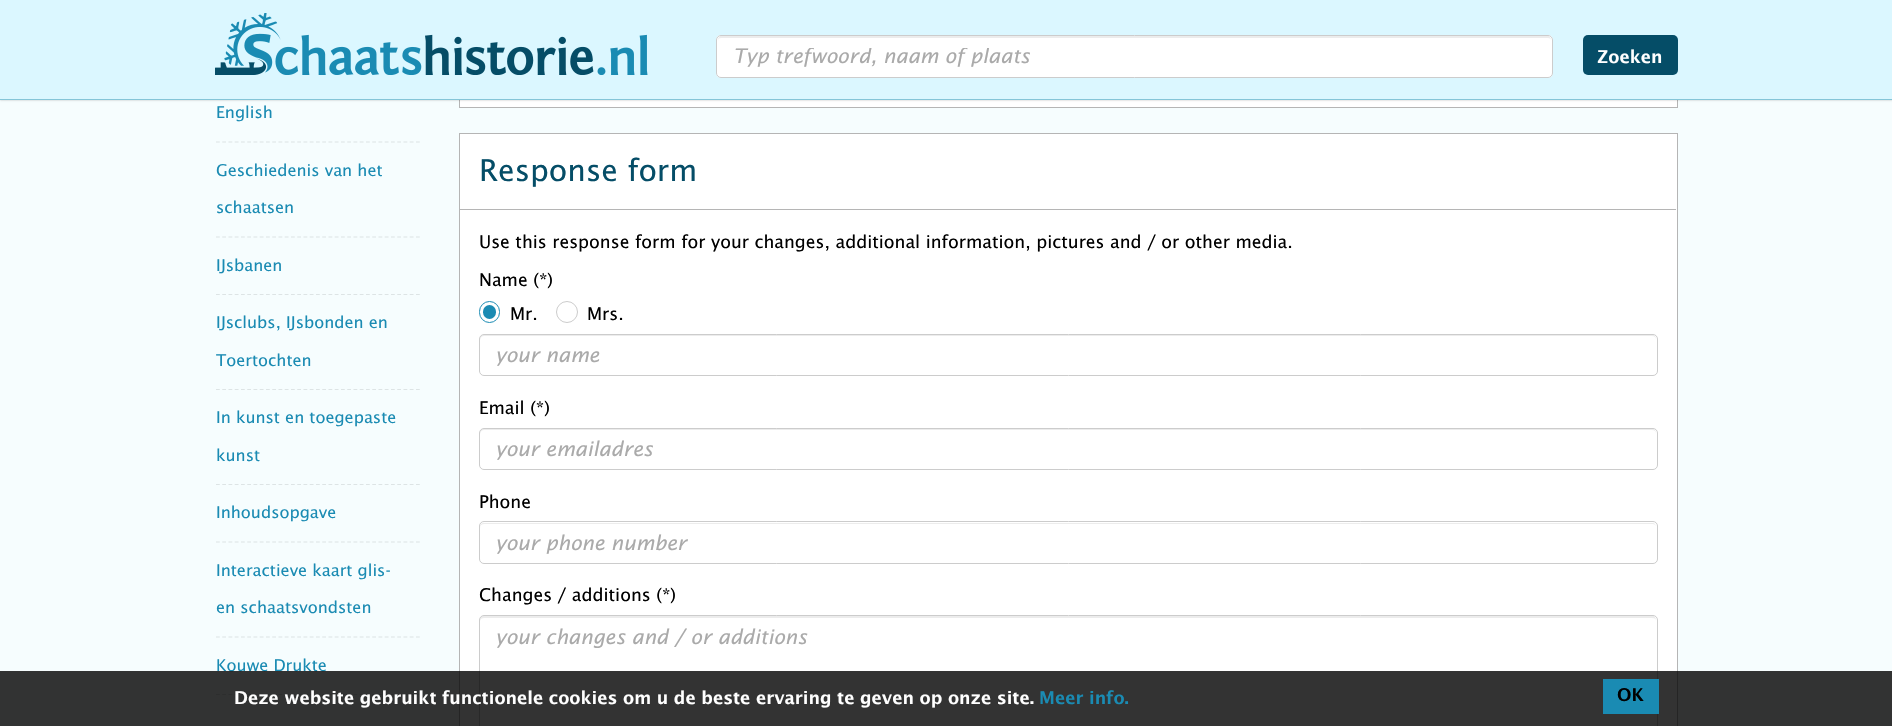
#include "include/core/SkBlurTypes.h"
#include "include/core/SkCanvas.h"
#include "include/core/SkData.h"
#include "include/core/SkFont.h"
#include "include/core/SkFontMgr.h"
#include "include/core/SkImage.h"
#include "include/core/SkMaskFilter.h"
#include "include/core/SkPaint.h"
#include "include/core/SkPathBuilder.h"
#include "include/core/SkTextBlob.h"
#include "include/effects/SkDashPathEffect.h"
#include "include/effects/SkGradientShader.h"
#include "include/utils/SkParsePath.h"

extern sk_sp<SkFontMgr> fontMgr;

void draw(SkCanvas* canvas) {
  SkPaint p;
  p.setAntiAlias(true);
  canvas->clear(SkColorSetRGB(246, 253, 254));
  p.setColor(SK_ColorWHITE);
  canvas->drawRect(SkRect::MakeLTRB(460, 100, 1677, 107), p);
  p.setStyle(SkPaint::kStroke_Style);
  p.setStrokeWidth(1);
  p.setColor(SkColorSetRGB(181, 181, 181));
  canvas->drawRect(SkRect::MakeLTRB(459.5f, -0.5f, 1677.5f, 107.5f), p);
  p.setStyle(SkPaint::kFill_Style);
  p.setColor(SkColorSetARGB(64, 0, 0, 0));
  p.setMaskFilter(SkMaskFilter::MakeBlur(kNormal_SkBlurStyle, 1));
  canvas->drawRect(SkRect::MakeLTRB(0, 0, 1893, 100), p);
  p.setMaskFilter(nullptr);
  p.setColor(SkColorSetRGB(219, 247, 255));
  canvas->drawRect(SkRect::MakeLTRB(0, 0, 1892, 99), p);
  p.setColor(SkColorSetRGB(132, 197, 216));
  canvas->drawRect(SkRect::MakeLTRB(0, 99, 1892, 100), p);
  canvas->drawImageRect(SkImages::DeferredFromEncodedData(SkData::MakeFromFileName("images/1.png")), SkRect::MakeLTRB(215, 13, 648, 75), SkSamplingOptions());
  p.setColor(SK_ColorWHITE);
  canvas->drawRoundRect(SkRect::MakeLTRB(716, 35, 1553, 78), 5, 5, p);
  p.setColor(SkColorSetRGB(236, 236, 236));
  canvas->drawPath(SkPathBuilder().moveTo(721, 38).lineTo(1548, 38).cubicTo(1550, 38, 1551, 39, 1551, 41).cubicTo(1551, 38, 1550, 36, 1547, 36).lineTo(722, 36).cubicTo(719, 36, 718, 38, 718, 41).cubicTo(718, 39, 719, 38, 721, 38).close().detach(), p);
  p.setStyle(SkPaint::kStroke_Style);
  p.setColor(SkColorSetRGB(204, 204, 204));
  canvas->drawRoundRect(SkRect::MakeLTRB(716.5f, 35.5f, 1552.5f, 77.5f), 4.5f, 4.5f, p);
  p.setStyle(SkPaint::kFill_Style);
  p.setColor(SkColorSetRGB(5, 77, 103));
  canvas->drawRoundRect(SkRect::MakeLTRB(1583, 35, 1678, 75), 5, 5, p);
  p.setStyle(SkPaint::kStroke_Style);
  p.setStrokeWidth(1.2f);
  p.setColor(SkColorSetRGB(221, 228, 229));
  p.setPathEffect(SkDashPathEffect::Make({{3.75f, 2.5f}}, 0));
  canvas->drawPath(SkPathBuilder().moveTo(216, 142).lineTo(420, 142).detach(), p);
  p.setPathEffect(nullptr);
  p.setPathEffect(SkDashPathEffect::Make({{3.75f, 2.5f}}, 0));
  canvas->drawPath(SkPathBuilder().moveTo(216, 237).lineTo(420, 237).detach(), p);
  p.setPathEffect(nullptr);
  p.setPathEffect(SkDashPathEffect::Make({{3.75f, 2.5f}}, 0));
  canvas->drawPath(SkPathBuilder().moveTo(216, 294.5f).lineTo(420, 294.5f).detach(), p);
  p.setPathEffect(nullptr);
  p.setPathEffect(SkDashPathEffect::Make({{3.75f, 2.5f}}, 0));
  canvas->drawPath(SkPathBuilder().moveTo(216, 389.5f).lineTo(420, 389.5f).detach(), p);
  p.setPathEffect(nullptr);
  p.setPathEffect(SkDashPathEffect::Make({{3.75f, 2.5f}}, 0));
  canvas->drawPath(SkPathBuilder().moveTo(216, 484.5f).lineTo(420, 484.5f).detach(), p);
  p.setPathEffect(nullptr);
  p.setPathEffect(SkDashPathEffect::Make({{3.75f, 2.5f}}, 0));
  canvas->drawPath(SkPathBuilder().moveTo(216, 542).lineTo(420, 542).detach(), p);
  p.setPathEffect(nullptr);
  p.setPathEffect(SkDashPathEffect::Make({{3.75f, 2.5f}}, 0));
  canvas->drawPath(SkPathBuilder().moveTo(216, 637).lineTo(420, 637).detach(), p);
  p.setPathEffect(nullptr);
  p.setPathEffect(SkDashPathEffect::Make({{3.75f, 2.5f}}, 0));
  canvas->drawPath(SkPathBuilder().moveTo(216, 694.5f).lineTo(420, 694.5f).detach(), p);
  p.setPathEffect(nullptr);
  p.setStyle(SkPaint::kFill_Style);
  p.setColor(SK_ColorWHITE);
  canvas->drawRect(SkRect::MakeLTRB(459.5f, 133.5f, 1677.5f, 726.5f), p);
  p.setStyle(SkPaint::kStroke_Style);
  p.setStrokeWidth(1);
  p.setColor(SkColorSetRGB(181, 181, 181));
  canvas->drawRect(SkRect::MakeLTRB(459.5f, 133.5f, 1677.5f, 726.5f), p);
  p.setStyle(SkPaint::kFill_Style);
  canvas->drawRect(SkRect::MakeLTRB(460, 209, 1676, 210), p);
  p.setStyle(SkPaint::kStroke_Style);
  p.setColor(SkColorSetRGB(26, 139, 179));
  canvas->drawRoundRect(SkRect::MakeLTRB(479.5f, 301.5f, 499.5f, 322.5f), 10, 10, p);
  p.setStyle(SkPaint::kFill_Style);
  canvas->drawRoundRect(SkRect::MakeLTRB(483, 305, 496, 319), 6.5f, 6.5f, p);
  p.setStyle(SkPaint::kStroke_Style);
  p.setColor(SkColorSetRGB(204, 204, 204));
  canvas->drawCircle(567, 312, 10.5f, p);
  p.setStyle(SkPaint::kFill_Style);
  p.setColor(SkColorSetRGB(236, 236, 236));
  canvas->drawPath(SkPathBuilder().moveTo(484, 336).lineTo(1652, 336).cubicTo(1655, 336, 1656, 338, 1656, 340).cubicTo(1656, 337, 1655, 335, 1652, 335).lineTo(484, 335).cubicTo(481, 335, 480, 337, 480, 340).cubicTo(480, 338, 482, 336, 484, 336).close().detach(), p);
  p.setStyle(SkPaint::kStroke_Style);
  p.setColor(SkColorSetRGB(204, 204, 204));
  canvas->drawRoundRect(SkRect::MakeLTRB(479.5f, 334.5f, 1657.5f, 375.5f), 4.5f, 4.5f, p);
  p.setStyle(SkPaint::kFill_Style);
  p.setColor(SkColorSetRGB(236, 236, 236));
  canvas->drawPath(SkPathBuilder().moveTo(484, 430).lineTo(1652, 430).cubicTo(1655, 430, 1656, 432, 1656, 434).cubicTo(1656, 431, 1655, 429, 1652, 429).lineTo(484, 429).cubicTo(481, 429, 480, 431, 480, 434).cubicTo(480, 432, 482, 430, 484, 430).close().detach(), p);
  p.setStyle(SkPaint::kStroke_Style);
  p.setColor(SkColorSetRGB(204, 204, 204));
  canvas->drawRoundRect(SkRect::MakeLTRB(479.5f, 428.5f, 1657.5f, 469.5f), 4.5f, 4.5f, p);
  p.setStyle(SkPaint::kFill_Style);
  p.setColor(SkColorSetRGB(236, 236, 236));
  canvas->drawPath(SkPathBuilder().moveTo(484, 524).lineTo(1652, 524).cubicTo(1655, 524, 1656, 525, 1656, 528).cubicTo(1656, 525, 1655, 523, 1652, 523).lineTo(484, 523).cubicTo(481, 523, 480, 525, 480, 528).cubicTo(480, 525, 482, 524, 484, 524).close().detach(), p);
  p.setStyle(SkPaint::kStroke_Style);
  p.setColor(SkColorSetRGB(204, 204, 204));
  canvas->drawRoundRect(SkRect::MakeLTRB(479.5f, 521.5f, 1657.5f, 563.5f), 4.5f, 4.5f, p);
  p.setStyle(SkPaint::kFill_Style);
  p.setColor(SkColorSetRGB(236, 236, 236));
  canvas->drawPath(SkPathBuilder().moveTo(484, 618).lineTo(1652, 618).cubicTo(1655, 618, 1656, 619, 1656, 621).cubicTo(1656, 618, 1655, 616, 1652, 616).lineTo(484, 616).cubicTo(481, 616, 480, 618, 480, 621).cubicTo(480, 619, 482, 618, 484, 618).close().detach(), p);
  p.setStyle(SkPaint::kStroke_Style);
  p.setColor(SkColorSetRGB(204, 204, 204));
  canvas->drawRoundRect(SkRect::MakeLTRB(479.5f, 615.5f, 1657.5f, 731.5f), 4.5f, 4.5f, p);
  canvas->save();
  canvas->clipRect(SkRect::MakeLTRB(733, 48, 1531, 68));
  SkFont font1(fontMgr->matchFamilyStyle("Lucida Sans", SkFontStyle::Italic()), 20);
  font1.setSubpixel(true);
  p.setStyle(SkPaint::kFill_Style);
  p.setColor(SkColorSetRGB(170, 170, 170));
  canvas->drawString("Typ trefwoord, naam of plaats", 733, 63, font1, p);
  canvas->restore();
  SkFont font2(fontMgr->matchFamilyStyle("Lucida Sans", SkFontStyle(100, SkFontStyle::kNormal_Width, SkFontStyle::kUpright_Slant)), 17.5f);
  font2.setSubpixel(true);
  p.setColor(SK_ColorWHITE);
  canvas->drawString("Zoeken", 1597, 63, font2, p);
  SkFont font3(fontMgr->matchFamilyStyle("Lucida Sans", SkFontStyle::Normal()), 16.25f);
  font3.setSubpixel(true);
  p.setColor(SkColorSetRGB(26, 139, 179));
  canvas->drawString("English", 216, 118, font3, p);
  canvas->drawString("Geschiedenis van het", 216, 176, font3, p);
  canvas->drawString("schaatsen", 216, 213, font3, p);
  canvas->drawString("IJsbanen", 216, 271, font3, p);
  canvas->drawString("IJsclubs, IJsbonden en", 216, 328, font3, p);
  canvas->drawString("Toertochten", 216, 366, font3, p);
  canvas->drawString("In kunst en toegepaste", 216, 423, font3, p);
  canvas->drawString("kunst", 216, 461, font3, p);
  canvas->drawString("Inhoudsopgave", 216, 518, font3, p);
  canvas->drawString("Interactieve kaart glis-", 216, 576, font3, p);
  canvas->drawString("en schaatsvondsten", 216, 613, font3, p);
  canvas->drawString("Kouwe Drukte", 216, 671, font3, p);
  SkFont font4(fontMgr->matchFamilyStyle("Lucida Sans", SkFontStyle::Normal()), 30);
  font4.setSubpixel(true);
  p.setColor(SkColorSetRGB(5, 77, 103));
  canvas->drawString("Response form", 479, 181, font4, p);
  SkFont font5(fontMgr->matchFamilyStyle("Lucida Sans", SkFontStyle::Normal()), 17.5f);
  font5.setSubpixel(true);
  p.setColor(SK_ColorBLACK);
  canvas->drawString("Use this response form for your changes, additional information, pictures and / or other media.", 479, 248, font5, p);
  canvas->drawString("Name (*)", 479, 286, font5, p);
  canvas->drawString("Mr.", 510, 320, font5, p);
  canvas->drawString("Mrs.", 587, 320, font5, p);
  p.setColor(SkColorSetRGB(170, 170, 170));
  canvas->drawString("your name", 495, 362, font1, p);
  p.setColor(SK_ColorBLACK);
  canvas->drawString("Email (*)", 479, 414, font5, p);
  p.setColor(SkColorSetRGB(170, 170, 170));
  canvas->drawString("your emailadres", 495, 456, font1, p);
  p.setColor(SK_ColorBLACK);
  canvas->drawString("Phone", 479, 508, font5, p);
  p.setColor(SkColorSetRGB(170, 170, 170));
  canvas->drawString("your phone number", 495, 550, font1, p);
  p.setColor(SK_ColorBLACK);
  canvas->drawString("Changes / additions (*)", 479, 601, font5, p);
  p.setColor(SkColorSetRGB(170, 170, 170));
  canvas->drawString("your changes and / or additions", 495, 644, font1, p);
  p.setColor(SkColorSetARGB(204, 0, 0, 0));
  canvas->drawRect(SkRect::MakeLTRB(0, 671, 1892, 726), p);
  p.setColor(SK_ColorWHITE);
  canvas->drawString("Deze website gebruikt functionele cookies om u de beste ervaring te geven op onze site.", 234, 704, font2, p);
  p.setColor(SkColorSetRGB(26, 139, 179));
  canvas->drawString("Meer info.", 1039, 704, font2, p);
  canvas->drawRect(SkRect::MakeLTRB(1603, 679, 1659, 714), p);
  p.setColor(SK_ColorBLACK);
  canvas->drawString("OK", 1617, 701, font2, p);
}
